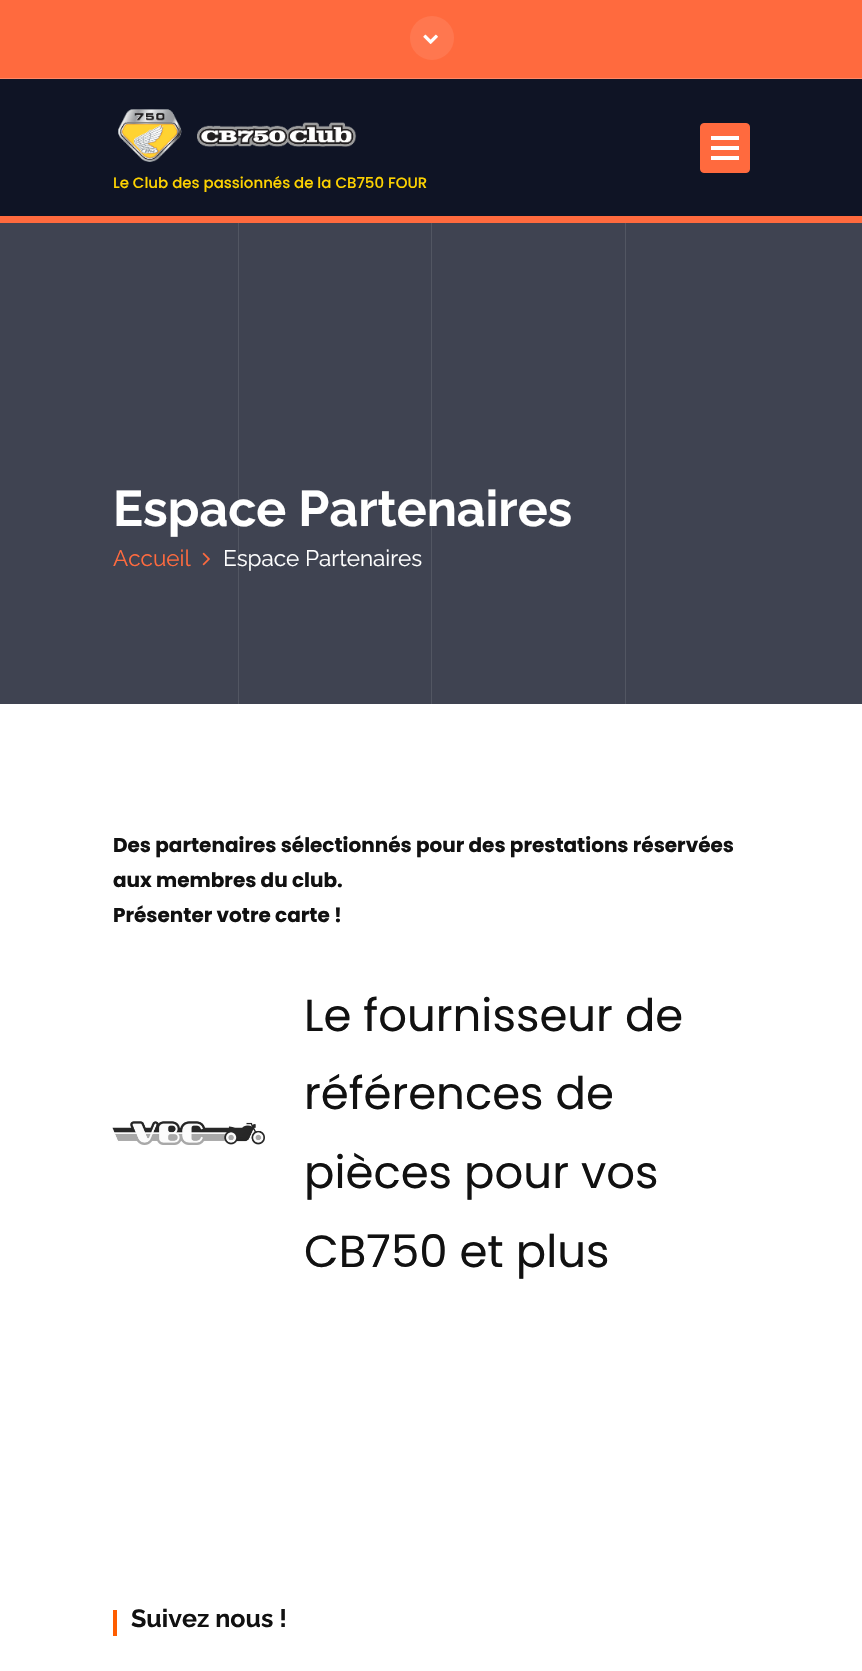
#include "include/core/SkBlurTypes.h"
#include "include/core/SkCanvas.h"
#include "include/core/SkData.h"
#include "include/core/SkFont.h"
#include "include/core/SkFontMgr.h"
#include "include/core/SkImage.h"
#include "include/core/SkMaskFilter.h"
#include "include/core/SkPaint.h"
#include "include/core/SkPathBuilder.h"
#include "include/core/SkTextBlob.h"
#include "include/effects/SkDashPathEffect.h"
#include "include/effects/SkGradientShader.h"
#include "include/utils/SkParsePath.h"

extern sk_sp<SkFontMgr> fontMgr;

void draw(SkCanvas* canvas) {
  SkPaint p;
  p.setAntiAlias(true);
  canvas->clear(SK_ColorWHITE);
  p.setColor(SkColorSetRGB(255, 106, 62));
  canvas->drawRect(SkRect::MakeLTRB(0, 0, 862, 78), p);
  p.setColor(SkColorSetRGB(255, 137, 103));
  canvas->drawRect(SkRect::MakeLTRB(0, 78, 862, 79), p);
  p.setColor(SkColorSetRGB(255, 119, 79));
  canvas->drawCircle(432, 38, 22, p);
  canvas->drawImageRect(SkImages::DeferredFromEncodedData(SkData::MakeFromFileName("images/1.png")), SkRect::MakeLTRB(423, 34, 438, 44), SkSamplingOptions());
  p.setColor(SkColorSetRGB(15, 20, 37));
  canvas->drawRect(SkRect::MakeLTRB(0, 79, 862, 216), p);
  p.setColor(SkColorSetRGB(255, 106, 62));
  canvas->drawRect(SkRect::MakeLTRB(0, 216, 862, 223), p);
  canvas->drawRoundRect(SkRect::MakeLTRB(700.5f, 123.5f, 749.5f, 172.5f), 3.5f, 3.5f, p);
  p.setStyle(SkPaint::kStroke_Style);
  p.setStrokeWidth(1);
  canvas->drawRoundRect(SkRect::MakeLTRB(700.5f, 123.5f, 749.5f, 172.5f), 3.5f, 3.5f, p);
  p.setStyle(SkPaint::kFill_Style);
  p.setColor(SK_ColorWHITE);
  canvas->drawRect(SkRect::MakeLTRB(711, 136, 739, 140), p);
  canvas->drawRect(SkRect::MakeLTRB(711, 146, 739, 150), p);
  canvas->drawRect(SkRect::MakeLTRB(711, 156, 739, 160), p);
  canvas->drawImageRect(SkImages::DeferredFromEncodedData(SkData::MakeFromFileName("images/2.png")), SkRect::MakeLTRB(118, 109, 357, 162), SkSamplingOptions());
  p.setColor(SkColorSetRGB(63, 67, 81));
  canvas->drawRect(SkRect::MakeLTRB(0, 223, 862, 704), p);
  p.setColor(SkColorSetRGB(82, 86, 98));
  canvas->drawRect(SkRect::MakeLTRB(238, 223, 239, 704), p);
  canvas->drawRect(SkRect::MakeLTRB(431, 223, 432, 704), p);
  canvas->drawRect(SkRect::MakeLTRB(625, 223, 626, 704), p);
  canvas->drawImageRect(SkImages::DeferredFromEncodedData(SkData::MakeFromFileName("images/3.png")), SkRect::MakeLTRB(202, 552, 210, 566), SkSamplingOptions());
  canvas->drawImageRect(SkImages::DeferredFromEncodedData(SkData::MakeFromFileName("images/4.png")), SkRect::MakeLTRB(112, 1121, 265, 1145), SkSamplingOptions());
  p.setColor(SkColorSetRGB(255, 93, 0));
  canvas->drawRect(SkRect::MakeLTRB(113, 1610, 117, 1636), p);
  SkFont font1(fontMgr->matchFamilyStyle("Poppins", SkFontStyle(500, SkFontStyle::kNormal_Width, SkFontStyle::kUpright_Slant)), 15);
  font1.setSubpixel(true);
  p.setColor(SkColorSetRGB(254, 211, 0));
  canvas->drawString("Le Club des passionnés de la CB750 FOUR", 113, 188, font1, p);
  SkFont font2(fontMgr->matchFamilyStyle("Raleway", SkFontStyle::Bold()), 50);
  font2.setSubpixel(true);
  p.setColor(SK_ColorWHITE);
  canvas->drawString("Espace Partenaires", 113, 526, font2, p);
  SkFont font3(fontMgr->matchFamilyStyle("Raleway", SkFontStyle::Normal()), 22.5f);
  font3.setSubpixel(true);
  p.setColor(SkColorSetRGB(255, 106, 62));
  canvas->drawString("Accueil", 113, 566, font3, p);
  p.setColor(SK_ColorWHITE);
  canvas->drawString("Espace Partenaires", 223, 566, font3, p);
  SkFont font4(fontMgr->matchFamilyStyle("Poppins", SkFontStyle::Bold()), 20);
  font4.setSubpixel(true);
  p.setColor(SkColorSetRGB(17, 17, 17));
  canvas->drawString("Des partenaires sélectionnés pour des prestations réservées", 113, 852, font4, p);
  canvas->drawString("aux membres du club.", 113, 887, font4, p);
  canvas->drawString("Présenter votre carte !", 113, 922, font4, p);
  SkFont font5(fontMgr->matchFamilyStyle("Poppins", SkFontStyle::Normal()), 45);
  font5.setSubpixel(true);
  canvas->drawString("Le fournisseur de", 304, 1031, font5, p);
  canvas->drawString("références de", 304, 1109, font5, p);
  canvas->drawString("pièces pour vos", 304, 1188, font5, p);
  canvas->drawString("CB750 et plus", 304, 1267, font5, p);
  SkFont font6(fontMgr->matchFamilyStyle("Raleway", SkFontStyle::Bold()), 25);
  font6.setSubpixel(true);
  canvas->drawString("Suivez nous !", 131, 1627, font6, p);
}
